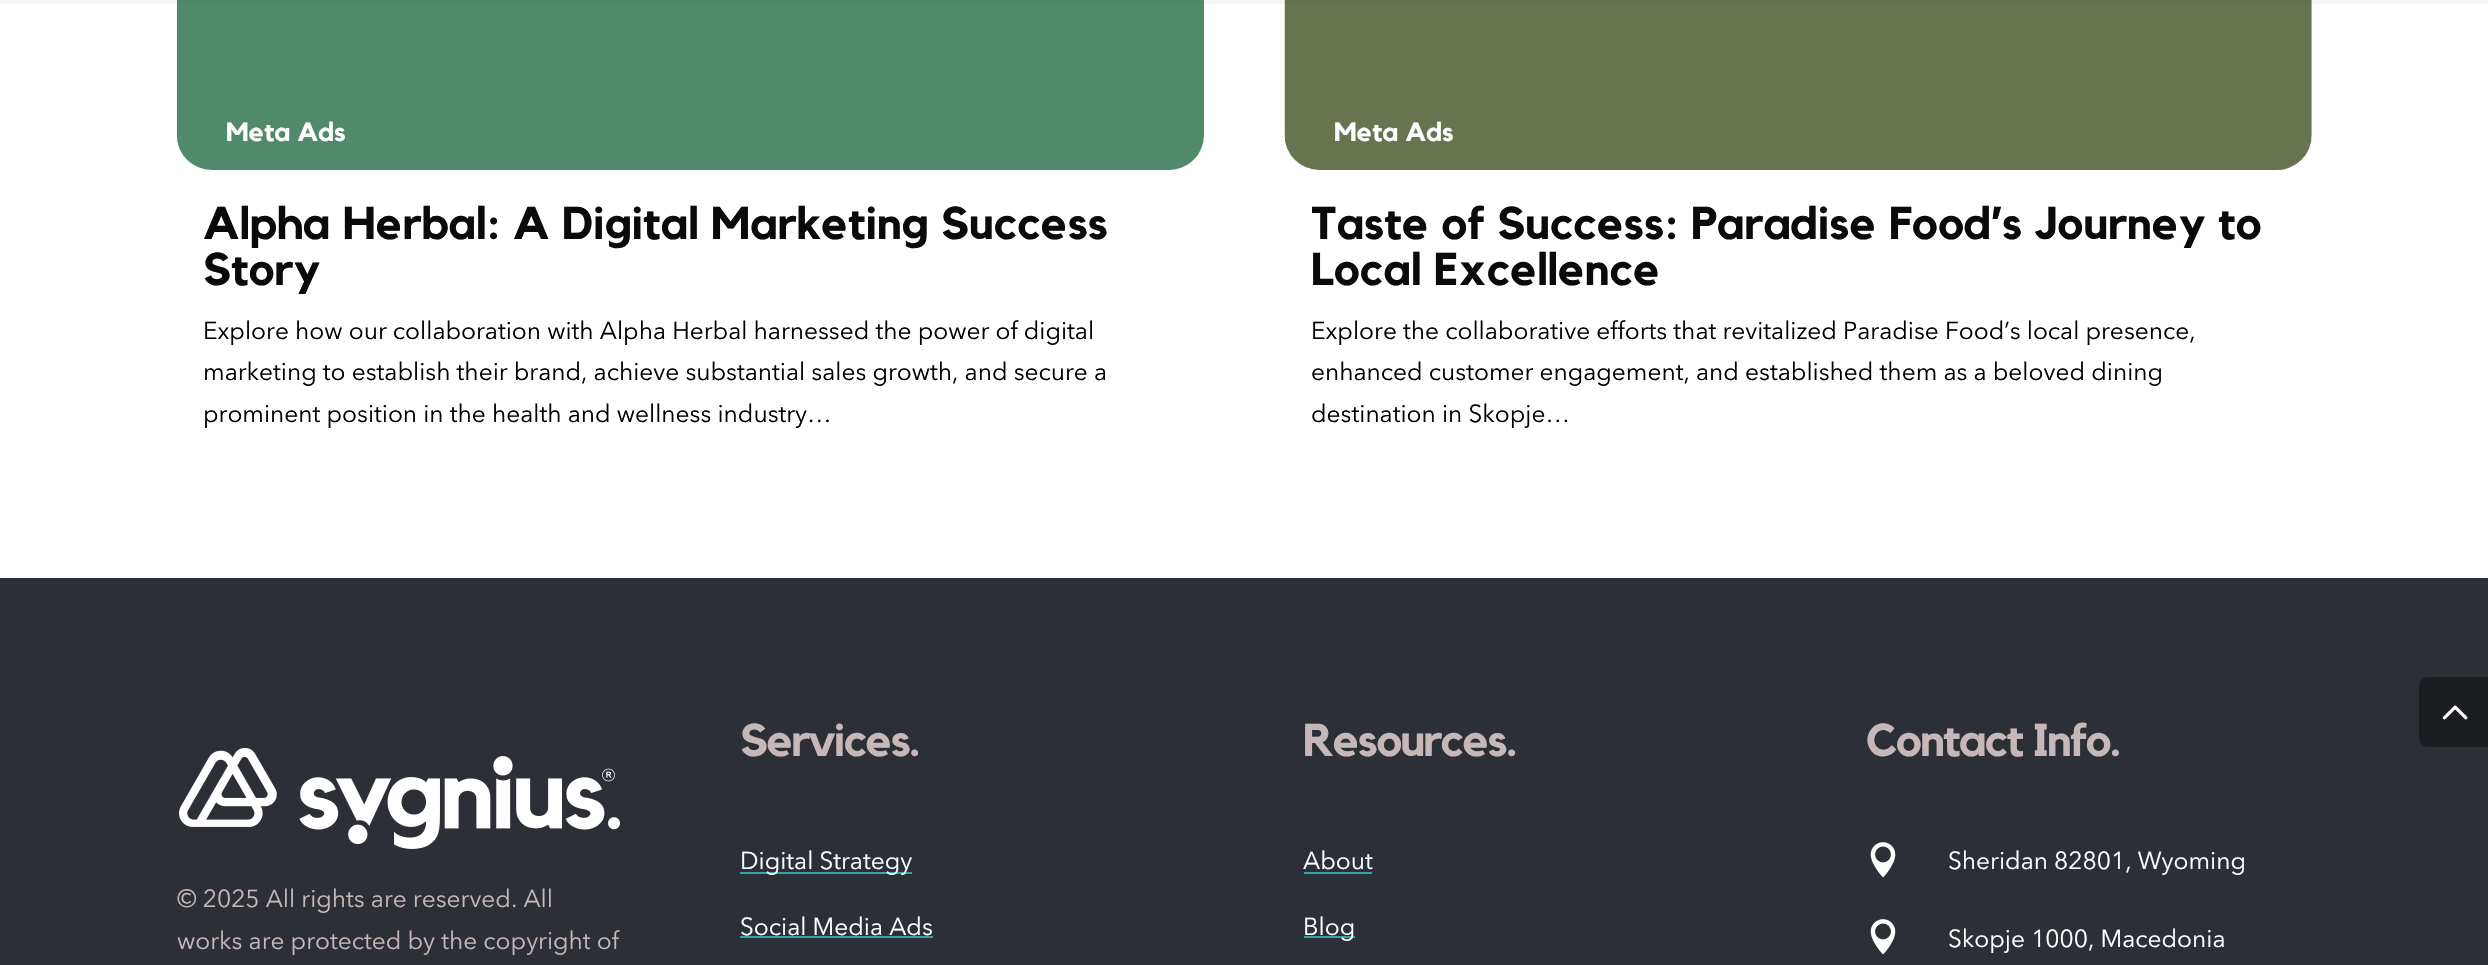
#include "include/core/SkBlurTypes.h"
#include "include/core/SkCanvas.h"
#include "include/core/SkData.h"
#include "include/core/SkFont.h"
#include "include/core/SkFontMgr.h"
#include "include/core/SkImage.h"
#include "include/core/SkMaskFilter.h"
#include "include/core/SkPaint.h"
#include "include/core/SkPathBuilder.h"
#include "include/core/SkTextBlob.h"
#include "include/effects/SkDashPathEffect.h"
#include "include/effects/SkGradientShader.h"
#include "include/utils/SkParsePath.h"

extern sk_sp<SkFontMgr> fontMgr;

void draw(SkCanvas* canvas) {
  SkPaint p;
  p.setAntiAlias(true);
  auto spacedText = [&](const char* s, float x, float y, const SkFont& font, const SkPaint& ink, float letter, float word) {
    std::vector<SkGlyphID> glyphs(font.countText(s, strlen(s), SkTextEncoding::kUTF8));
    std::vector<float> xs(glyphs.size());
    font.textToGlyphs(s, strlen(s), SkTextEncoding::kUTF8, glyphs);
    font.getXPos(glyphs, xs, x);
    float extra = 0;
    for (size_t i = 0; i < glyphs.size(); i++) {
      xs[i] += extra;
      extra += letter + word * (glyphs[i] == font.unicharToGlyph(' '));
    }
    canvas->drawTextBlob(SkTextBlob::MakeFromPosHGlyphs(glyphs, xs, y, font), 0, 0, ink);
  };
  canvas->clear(SK_ColorWHITE);
  canvas->drawImageRect(SkImages::DeferredFromEncodedData(SkData::MakeFromFileName("images/1.png")), SkRect::MakeLTRB(176, 0, 1204, 170), SkSamplingOptions());
  canvas->drawImageRect(SkImages::DeferredFromEncodedData(SkData::MakeFromFileName("images/2.png")), SkRect::MakeLTRB(1284, 0, 2312, 170), SkSamplingOptions());
  p.setColor(SkColorSetARGB(8, 0, 0, 0));
  canvas->drawPath(SkPathBuilder().moveTo(0, 0).lineTo(0, 4).lineTo(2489, 4).lineTo(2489, -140).lineTo(2488, -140).lineTo(2488, 0).close().detach(), p);
  p.setColor(SkColorSetRGB(44, 47, 53));
  canvas->drawRect(SkRect::MakeLTRB(0, 578, 2488, 965), p);
  canvas->drawImageRect(SkImages::DeferredFromEncodedData(SkData::MakeFromFileName("images/3.png")), SkRect::MakeLTRB(179, 747, 620, 849), SkSamplingOptions());
  p.setColor(SkColorSetRGB(52, 165, 166));
  canvas->drawRect(SkRect::MakeLTRB(740, 872, 912, 874), p);
  canvas->drawRect(SkRect::MakeLTRB(740, 936, 933, 938), p);
  canvas->drawRect(SkRect::MakeLTRB(1304, 872, 1372, 874), p);
  canvas->drawRect(SkRect::MakeLTRB(1304, 936, 1355, 938), p);
  canvas->drawImageRect(SkImages::DeferredFromEncodedData(SkData::MakeFromFileName("images/4.png")), SkRect::MakeLTRB(1870, 842, 1896, 878), SkSamplingOptions());
  canvas->drawImageRect(SkImages::DeferredFromEncodedData(SkData::MakeFromFileName("images/4.png")), SkRect::MakeLTRB(1870, 919, 1896, 955), SkSamplingOptions());
  p.setColor(SkColorSetRGB(26, 28, 32));
  canvas->drawPath(SkPathBuilder().moveTo(2428, 677).lineTo(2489, 677).lineTo(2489, 747).lineTo(2428, 747).cubicTo(2423, 747, 2419, 743, 2419, 738).lineTo(2419, 686).cubicTo(2419, 681, 2423, 677, 2428, 677).close().detach(), p);
  canvas->drawImageRect(SkImages::DeferredFromEncodedData(SkData::MakeFromFileName("images/5.png")), SkRect::MakeLTRB(2442, 705, 2468, 720), SkSamplingOptions());
  SkFont font1(fontMgr->matchFamilyStyle("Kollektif", SkFontStyle::Bold()), 26.25f);
  font1.setSubpixel(true);
  p.setColor(SK_ColorWHITE);
  canvas->drawString("Meta Ads", 226, 141, font1, p);
  SkFont font2(fontMgr->matchFamilyStyle("Kollektif", SkFontStyle::Bold()), 45.5f);
  font2.setSubpixel(true);
  p.setColor(SkColorSetRGB(10, 10, 10));
  canvas->drawString("Alpha Herbal: A Digital Marketing Success", 203, 239, font2, p);
  canvas->drawString("Story", 203, 285, font2, p);
  SkFont font3(fontMgr->matchFamilyStyle("Avenir Next", SkFontStyle::Normal()), 24.5f);
  font3.setSubpixel(true);
  p.setColor(SK_ColorBLACK);
  canvas->drawString("Explore how our collaboration with Alpha Herbal harnessed the power of digital", 203, 339, font3, p);
  canvas->drawString("marketing to establish their brand, achieve substantial sales growth, and secure a", 203, 380, font3, p);
  canvas->drawString("prominent position in the health and wellness industry…", 203, 422, font3, p);
  p.setColor(SK_ColorWHITE);
  canvas->drawString("Meta Ads", 1334, 141, font1, p);
  p.setColor(SkColorSetRGB(10, 10, 10));
  canvas->drawString("Taste of Success: Paradise Food’s Journey to", 1311, 239, font2, p);
  canvas->drawString("Local Excellence", 1311, 285, font2, p);
  p.setColor(SK_ColorBLACK);
  canvas->drawString("Explore the collaborative efforts that revitalized Paradise Food’s local presence,", 1311, 339, font3, p);
  canvas->drawString("enhanced customer engagement, and established them as a beloved dining", 1311, 380, font3, p);
  canvas->drawString("destination in Skopje…", 1311, 422, font3, p);
  p.setColor(SkColorSetRGB(198, 184, 184));
  canvas->drawString("© 2025 All rights are reserved. All", 177, 907, font3, p);
  canvas->drawString("works are protected by the copyright of", 177, 949, font3, p);
  spacedText("Services.", 740, 756, font2, p, -1.75f, 0);
  p.setColor(SK_ColorWHITE);
  canvas->drawString("Digital Strategy", 740, 869, font3, p);
  canvas->drawString("Social Media Ads", 740, 935, font3, p);
  p.setColor(SkColorSetRGB(198, 184, 184));
  spacedText("Resources.", 1303, 756, font2, p, -1.75f, 0);
  p.setColor(SK_ColorWHITE);
  canvas->drawString("About", 1303, 869, font3, p);
  canvas->drawString("Blog", 1303, 935, font3, p);
  p.setColor(SkColorSetRGB(198, 184, 184));
  spacedText("Contact Info.", 1866, 756, font2, p, -1.75f, 0);
  p.setColor(SK_ColorWHITE);
  canvas->drawString("Sheridan 82801, Wyoming", 1948, 869, font3, p);
  canvas->drawString("Skopje 1000, Macedonia", 1948, 947, font3, p);
}
